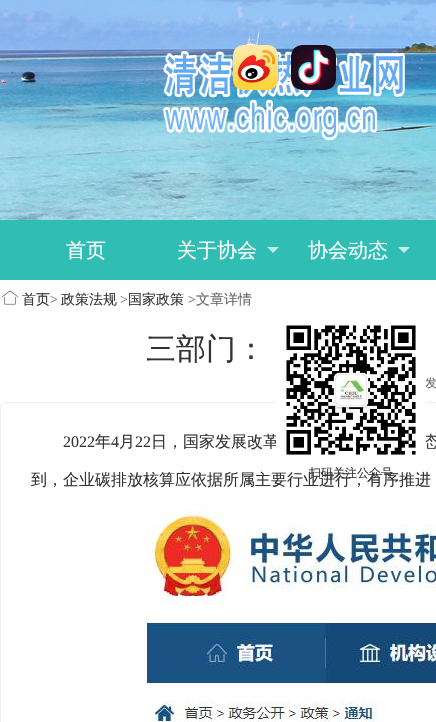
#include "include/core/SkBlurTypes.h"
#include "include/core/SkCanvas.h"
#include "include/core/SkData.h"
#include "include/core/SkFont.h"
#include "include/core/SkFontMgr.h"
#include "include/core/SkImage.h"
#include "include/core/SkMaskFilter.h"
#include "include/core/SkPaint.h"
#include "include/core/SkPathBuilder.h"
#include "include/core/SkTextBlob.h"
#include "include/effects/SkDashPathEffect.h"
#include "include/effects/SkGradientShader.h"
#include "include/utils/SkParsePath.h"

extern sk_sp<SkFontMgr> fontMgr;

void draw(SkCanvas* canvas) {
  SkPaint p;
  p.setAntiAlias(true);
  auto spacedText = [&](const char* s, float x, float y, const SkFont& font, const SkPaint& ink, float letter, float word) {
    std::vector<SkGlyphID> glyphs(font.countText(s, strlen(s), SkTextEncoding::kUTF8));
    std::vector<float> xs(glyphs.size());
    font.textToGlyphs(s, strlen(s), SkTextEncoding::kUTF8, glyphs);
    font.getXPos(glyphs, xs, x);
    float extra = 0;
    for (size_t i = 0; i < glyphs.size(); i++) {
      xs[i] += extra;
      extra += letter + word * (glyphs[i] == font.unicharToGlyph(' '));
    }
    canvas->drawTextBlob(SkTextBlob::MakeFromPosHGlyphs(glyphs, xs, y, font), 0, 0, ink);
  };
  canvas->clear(SK_ColorWHITE);
  canvas->drawImageRect(SkImages::DeferredFromEncodedData(SkData::MakeFromFileName("images/1.png")), SkRect::MakeLTRB(0, 0, 436, 220), SkSamplingOptions());
  canvas->drawImageRect(SkImages::DeferredFromEncodedData(SkData::MakeFromFileName("images/2.png")), SkRect::MakeLTRB(233, 45, 278, 90), SkSamplingOptions());
  canvas->drawImageRect(SkImages::DeferredFromEncodedData(SkData::MakeFromFileName("images/3.png")), SkRect::MakeLTRB(291, 45, 336, 90), SkSamplingOptions());
  p.setColor(SkColorSetRGB(48, 189, 179));
  canvas->drawRect(SkRect::MakeLTRB(0, 220, 436, 280), p);
  p.setColor(SkColorSetRGB(193, 235, 232));
  canvas->drawPath(SkPathBuilder().moveTo(267, 247).lineTo(279, 247).lineTo(273, 253).close().detach(), p);
  canvas->drawPath(SkPathBuilder().moveTo(398, 247).lineTo(410, 247).lineTo(404, 253).close().detach(), p);
  canvas->drawImageRect(SkImages::DeferredFromEncodedData(SkData::MakeFromFileName("images/4.png")), SkRect::MakeLTRB(2, 290, 18, 305), SkSamplingOptions());
  p.setStyle(SkPaint::kStroke_Style);
  p.setStrokeWidth(1);
  p.setColor(SkColorSetRGB(238, 238, 238));
  canvas->drawRoundRect(SkRect::MakeLTRB(0.5f, 402.5f, 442.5f, 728.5f), 5.5f, 5.5f, p);
  canvas->drawImageRect(SkImages::DeferredFromEncodedData(SkData::MakeFromFileName("images/5.png")), SkRect::MakeLTRB(147, 509, 436, 722), SkSamplingOptions());
  SkFont font1(fontMgr->matchFamilyStyle("WenQuanYi Zen Hei", SkFontStyle(500, SkFontStyle::kNormal_Width, SkFontStyle::kUpright_Slant)), 20);
  font1.setSubpixel(true);
  p.setStyle(SkPaint::kFill_Style);
  p.setColor(SK_ColorWHITE);
  canvas->drawString("首页", 66, 257, font1, p);
  canvas->drawString("关于协会", 177, 257, font1, p);
  canvas->drawString("协会动态", 308, 257, font1, p);
  SkFont font2(fontMgr->matchFamilyStyle("WenQuanYi Zen Hei", SkFontStyle(500, SkFontStyle::kNormal_Width, SkFontStyle::kUpright_Slant)), 14);
  font2.setSubpixel(true);
  p.setColor(SkColorSetRGB(51, 51, 51));
  canvas->drawString("首页", 22, 304, font2, p);
  SkFont font3(fontMgr->matchFamilyStyle("Liberation Serif", SkFontStyle::Normal()), 14);
  font3.setSubpixel(true);
  p.setColor(SkColorSetRGB(102, 102, 102));
  canvas->drawString(">", 50, 304, font3, p);
  p.setColor(SkColorSetRGB(51, 51, 51));
  canvas->drawString("政策法规", 61, 304, font2, p);
  p.setColor(SkColorSetRGB(102, 102, 102));
  canvas->drawString(">", 120, 304, font3, p);
  p.setColor(SkColorSetRGB(51, 51, 51));
  canvas->drawString("国家政策", 128, 304, font2, p);
  p.setColor(SkColorSetRGB(102, 102, 102));
  canvas->drawString(">", 188, 304, font3, p);
  canvas->drawString("文章详情", 196, 304, font2, p);
  SkFont font4(fontMgr->matchFamilyStyle("WenQuanYi Zen Hei", SkFontStyle(500, SkFontStyle::kNormal_Width, SkFontStyle::kUpright_Slant)), 30);
  font4.setSubpixel(true);
  p.setColor(SkColorSetRGB(51, 51, 51));
  spacedText("三部门：", 146, 359, font4, p, 0, -1);
  SkFont font5(fontMgr->matchFamilyStyle("WenQuanYi Zen Hei", SkFontStyle(500, SkFontStyle::kNormal_Width, SkFontStyle::kUpright_Slant)), 12);
  font5.setSubpixel(true);
  p.setColor(SkColorSetRGB(102, 102, 102));
  canvas->drawString("发", 425, 387, font5, p);
  SkFont font6(fontMgr->matchFamilyStyle("Liberation Serif", SkFontStyle::Normal()), 16);
  font6.setSubpixel(true);
  p.setColor(SkColorSetRGB(51, 51, 51));
  canvas->drawString("2022", 63, 447, font6, p);
  SkFont font7(fontMgr->matchFamilyStyle("WenQuanYi Zen Hei", SkFontStyle(500, SkFontStyle::kNormal_Width, SkFontStyle::kUpright_Slant)), 16);
  font7.setSubpixel(true);
  canvas->drawString("年", 95, 447, font7, p);
  canvas->drawString("4", 111, 447, font6, p);
  canvas->drawString("月", 119, 447, font7, p);
  canvas->drawString("22", 135, 447, font6, p);
  canvas->drawString("日，国家发展改革", 151, 447, font7, p);
  canvas->drawString("态", 423, 447, font7, p);
  canvas->drawString("到，企业碳排放核算应依据所属主要行业进行，有序推进", 31, 485, font7, p);
  canvas->drawImageRect(SkImages::DeferredFromEncodedData(SkData::MakeFromFileName("images/6.png")), SkRect::MakeLTRB(276, 324, 426, 455), SkSamplingOptions());
  canvas->drawString("扫码关注公众号", 309, 477, font5, p);
}
